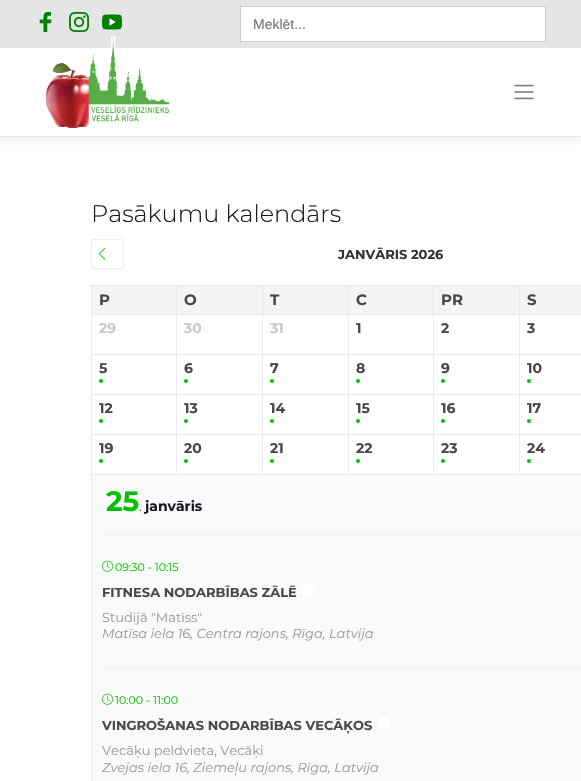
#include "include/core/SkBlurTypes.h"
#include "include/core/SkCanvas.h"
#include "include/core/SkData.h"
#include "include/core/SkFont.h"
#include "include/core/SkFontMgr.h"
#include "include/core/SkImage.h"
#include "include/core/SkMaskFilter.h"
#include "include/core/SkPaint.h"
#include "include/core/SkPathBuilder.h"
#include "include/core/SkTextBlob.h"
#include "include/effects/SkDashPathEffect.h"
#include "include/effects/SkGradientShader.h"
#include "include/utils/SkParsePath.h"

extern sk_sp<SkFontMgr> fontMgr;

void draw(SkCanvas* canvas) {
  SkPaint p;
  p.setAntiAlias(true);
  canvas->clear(SK_ColorWHITE);
  p.setColor(SkColorSetRGB(229, 229, 229));
  canvas->drawRect(SkRect::MakeLTRB(0, 0, 581, 48), p);
  canvas->drawImageRect(SkImages::DeferredFromEncodedData(SkData::MakeFromFileName("images/1.png")), SkRect::MakeLTRB(39, 12, 52, 32), SkSamplingOptions());
  canvas->drawImageRect(SkImages::DeferredFromEncodedData(SkData::MakeFromFileName("images/2.png")), SkRect::MakeLTRB(69, 12, 89, 32), SkSamplingOptions());
  canvas->drawImageRect(SkImages::DeferredFromEncodedData(SkData::MakeFromFileName("images/3.png")), SkRect::MakeLTRB(102, 14, 122, 30), SkSamplingOptions());
  canvas->save();
  canvas->clipRect(SkRect::MakeLTRB(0, 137, 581, 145));
  p.setColor(SkColorSetARGB(13, 0, 0, 0));
  p.setMaskFilter(SkMaskFilter::MakeBlur(kNormal_SkBlurStyle, 6.5f));
  canvas->drawRect(SkRect::MakeLTRB(0, 54, 581, 143), p);
  p.setMaskFilter(nullptr);
  canvas->restore();
  p.setColor(SK_ColorWHITE);
  canvas->drawRect(SkRect::MakeLTRB(240.5f, 6.5f, 545.5f, 41.5f), p);
  p.setStyle(SkPaint::kStroke_Style);
  p.setStrokeWidth(1);
  p.setColor(SkColorSetRGB(204, 204, 204));
  canvas->drawRect(SkRect::MakeLTRB(240.5f, 6.5f, 545.5f, 41.5f), p);
  p.setStyle(SkPaint::kFill_Style);
  p.setColor(SkColorSetRGB(230, 230, 230));
  canvas->drawRect(SkRect::MakeLTRB(0, 136, 581, 137), p);
  canvas->drawImageRect(SkImages::DeferredFromEncodedData(SkData::MakeFromFileName("images/4.png")), SkRect::MakeLTRB(45, 36, 169, 129), SkSamplingOptions());
  canvas->drawImageRect(SkImages::DeferredFromEncodedData(SkData::MakeFromFileName("images/5.png")), SkRect::MakeLTRB(514, 84, 534, 100), SkSamplingOptions());
  p.setColor(SkColorSetRGB(251, 251, 251));
  canvas->drawPath(SkPathBuilder().moveTo(91, 267).cubicTo(91, 272, 92.5f, 271, 98, 271).lineTo(117, 271).cubicTo(122.5f, 271, 124, 272, 124, 267).cubicTo(124, 268, 123, 269, 122, 269).lineTo(93, 269).cubicTo(92, 269, 91, 268, 91, 267).close().detach(), p);
  p.setStyle(SkPaint::kStroke_Style);
  p.setColor(SkColorSetRGB(238, 238, 238));
  canvas->drawRoundRect(SkRect::MakeLTRB(91.5f, 239.5f, 123.5f, 268.5f), 1.5f, 1.5f, p);
  canvas->drawImageRect(SkImages::DeferredFromEncodedData(SkData::MakeFromFileName("images/6.png")), SkRect::MakeLTRB(98, 247, 106, 260), SkSamplingOptions());
  p.setStyle(SkPaint::kFill_Style);
  p.setColor(SkColorSetRGB(244, 244, 244));
  canvas->drawRect(SkRect::MakeLTRB(92, 286, 176, 314), p);
  p.setColor(SkColorSetRGB(234, 234, 234));
  canvas->drawRect(SkRect::MakeLTRB(91, 285, 581, 286), p);
  canvas->drawRect(SkRect::MakeLTRB(91, 314, 581, 315), p);
  canvas->drawRect(SkRect::MakeLTRB(91, 285, 92, 315), p);
  p.setColor(SkColorSetRGB(244, 244, 244));
  canvas->drawRect(SkRect::MakeLTRB(177, 286, 262, 314), p);
  p.setColor(SkColorSetRGB(234, 234, 234));
  canvas->drawRect(SkRect::MakeLTRB(176, 285, 177, 315), p);
  p.setColor(SkColorSetRGB(244, 244, 244));
  canvas->drawRect(SkRect::MakeLTRB(263, 286, 348, 314), p);
  p.setColor(SkColorSetRGB(234, 234, 234));
  canvas->drawRect(SkRect::MakeLTRB(262, 285, 263, 315), p);
  p.setColor(SkColorSetRGB(244, 244, 244));
  canvas->drawRect(SkRect::MakeLTRB(349, 286, 433, 314), p);
  p.setColor(SkColorSetRGB(234, 234, 234));
  canvas->drawRect(SkRect::MakeLTRB(348, 285, 349, 315), p);
  p.setColor(SkColorSetRGB(244, 244, 244));
  canvas->drawRect(SkRect::MakeLTRB(434, 286, 519, 314), p);
  p.setColor(SkColorSetRGB(234, 234, 234));
  canvas->drawRect(SkRect::MakeLTRB(433, 285, 434, 315), p);
  p.setColor(SkColorSetRGB(244, 244, 244));
  canvas->drawRect(SkRect::MakeLTRB(520, 286, 581, 314), p);
  p.setColor(SkColorSetRGB(234, 234, 234));
  canvas->drawRect(SkRect::MakeLTRB(519, 285, 520, 315), p);
  canvas->drawRect(SkRect::MakeLTRB(91, 354, 581, 355), p);
  canvas->drawRect(SkRect::MakeLTRB(91, 315, 92, 355), p);
  canvas->drawRect(SkRect::MakeLTRB(176, 315, 177, 355), p);
  canvas->drawRect(SkRect::MakeLTRB(262, 315, 263, 355), p);
  canvas->drawRect(SkRect::MakeLTRB(348, 315, 349, 355), p);
  canvas->drawRect(SkRect::MakeLTRB(433, 315, 434, 355), p);
  canvas->drawRect(SkRect::MakeLTRB(519, 315, 520, 355), p);
  canvas->drawRect(SkRect::MakeLTRB(91, 394, 581, 395), p);
  canvas->drawRect(SkRect::MakeLTRB(91, 355, 92, 395), p);
  p.setColor(SkColorSetRGB(3, 193, 0));
  canvas->drawCircle(101, 381, 2, p);
  p.setColor(SkColorSetRGB(234, 234, 234));
  canvas->drawRect(SkRect::MakeLTRB(176, 355, 177, 395), p);
  p.setColor(SkColorSetRGB(3, 193, 0));
  canvas->drawCircle(186, 381, 2, p);
  p.setColor(SkColorSetRGB(234, 234, 234));
  canvas->drawRect(SkRect::MakeLTRB(262, 355, 263, 395), p);
  p.setColor(SkColorSetRGB(3, 193, 0));
  canvas->drawCircle(272, 381, 2, p);
  p.setColor(SkColorSetRGB(234, 234, 234));
  canvas->drawRect(SkRect::MakeLTRB(348, 355, 349, 395), p);
  p.setColor(SkColorSetRGB(3, 193, 0));
  canvas->drawCircle(358, 381, 2, p);
  p.setColor(SkColorSetRGB(234, 234, 234));
  canvas->drawRect(SkRect::MakeLTRB(433, 355, 434, 395), p);
  p.setColor(SkColorSetRGB(3, 193, 0));
  canvas->drawCircle(443, 381, 2, p);
  p.setColor(SkColorSetRGB(234, 234, 234));
  canvas->drawRect(SkRect::MakeLTRB(519, 355, 520, 395), p);
  p.setColor(SkColorSetRGB(3, 193, 0));
  canvas->drawCircle(529, 381, 2, p);
  p.setColor(SkColorSetRGB(234, 234, 234));
  canvas->drawRect(SkRect::MakeLTRB(91, 434, 581, 435), p);
  canvas->drawRect(SkRect::MakeLTRB(91, 395, 92, 435), p);
  p.setColor(SkColorSetRGB(3, 193, 0));
  canvas->drawCircle(101, 421, 2, p);
  p.setColor(SkColorSetRGB(234, 234, 234));
  canvas->drawRect(SkRect::MakeLTRB(176, 395, 177, 435), p);
  p.setColor(SkColorSetRGB(3, 193, 0));
  canvas->drawCircle(186, 421, 2, p);
  p.setColor(SkColorSetRGB(234, 234, 234));
  canvas->drawRect(SkRect::MakeLTRB(262, 395, 263, 435), p);
  p.setColor(SkColorSetRGB(3, 193, 0));
  canvas->drawCircle(272, 421, 2, p);
  p.setColor(SkColorSetRGB(234, 234, 234));
  canvas->drawRect(SkRect::MakeLTRB(348, 395, 349, 435), p);
  p.setColor(SkColorSetRGB(3, 193, 0));
  canvas->drawCircle(358, 421, 2, p);
  p.setColor(SkColorSetRGB(234, 234, 234));
  canvas->drawRect(SkRect::MakeLTRB(433, 395, 434, 435), p);
  p.setColor(SkColorSetRGB(3, 193, 0));
  canvas->drawCircle(443, 421, 2, p);
  p.setColor(SkColorSetRGB(234, 234, 234));
  canvas->drawRect(SkRect::MakeLTRB(519, 395, 520, 435), p);
  p.setColor(SkColorSetRGB(3, 193, 0));
  canvas->drawCircle(529, 421, 2, p);
  p.setColor(SkColorSetRGB(234, 234, 234));
  canvas->drawRect(SkRect::MakeLTRB(91, 474, 581, 475), p);
  canvas->drawRect(SkRect::MakeLTRB(91, 435, 92, 475), p);
  p.setColor(SkColorSetRGB(3, 193, 0));
  canvas->drawCircle(101, 461, 2, p);
  p.setColor(SkColorSetRGB(234, 234, 234));
  canvas->drawRect(SkRect::MakeLTRB(176, 435, 177, 475), p);
  p.setColor(SkColorSetRGB(3, 193, 0));
  canvas->drawCircle(186, 461, 2, p);
  p.setColor(SkColorSetRGB(234, 234, 234));
  canvas->drawRect(SkRect::MakeLTRB(262, 435, 263, 475), p);
  p.setColor(SkColorSetRGB(3, 193, 0));
  canvas->drawCircle(272, 461, 2, p);
  p.setColor(SkColorSetRGB(234, 234, 234));
  canvas->drawRect(SkRect::MakeLTRB(348, 435, 349, 475), p);
  p.setColor(SkColorSetRGB(3, 193, 0));
  canvas->drawCircle(358, 461, 2, p);
  p.setColor(SkColorSetRGB(234, 234, 234));
  canvas->drawRect(SkRect::MakeLTRB(433, 435, 434, 475), p);
  p.setColor(SkColorSetRGB(3, 193, 0));
  canvas->drawCircle(443, 461, 2, p);
  p.setColor(SkColorSetRGB(234, 234, 234));
  canvas->drawRect(SkRect::MakeLTRB(519, 435, 520, 475), p);
  p.setColor(SkColorSetRGB(3, 193, 0));
  canvas->drawCircle(529, 461, 2, p);
  p.setColor(SkColorSetRGB(250, 250, 250));
  canvas->drawRect(SkRect::MakeLTRB(92, 475, 581, 781), p);
  p.setColor(SkColorSetRGB(234, 234, 234));
  canvas->drawRect(SkRect::MakeLTRB(91, 475, 92, 781), p);
  p.setColor(SkColorSetRGB(239, 239, 239));
  canvas->drawRect(SkRect::MakeLTRB(102, 534, 581, 535), p);
  canvas->drawImageRect(SkImages::DeferredFromEncodedData(SkData::MakeFromFileName("images/7.png")), SkRect::MakeLTRB(102, 560, 113, 572), SkSamplingOptions());
  p.setColor(SK_ColorWHITE);
  canvas->drawCircle(308, 590, 7, p);
  p.setColor(SkColorSetRGB(239, 239, 239));
  canvas->drawRect(SkRect::MakeLTRB(102, 667, 581, 668), p);
  canvas->drawImageRect(SkImages::DeferredFromEncodedData(SkData::MakeFromFileName("images/7.png")), SkRect::MakeLTRB(102, 693, 113, 705), SkSamplingOptions());
  p.setColor(SK_ColorWHITE);
  canvas->drawCircle(384, 723, 7, p);
  SkFont font1(fontMgr->matchFamilyStyle("Liberation Sans", SkFontStyle::Normal()), 14);
  font1.setSubpixel(true);
  p.setColor(SkColorSetRGB(117, 117, 117));
  canvas->drawString("Meklēt...", 253, 29, font1, p);
  SkFont font2(fontMgr->matchFamilyStyle("Montserrat", SkFontStyle(300, SkFontStyle::kNormal_Width, SkFontStyle::kUpright_Slant)), 24);
  font2.setSubpixel(true);
  p.setColor(SkColorSetRGB(23, 28, 36));
  canvas->drawString("Pasākumu kalendārs", 91, 222, font2, p);
  SkFont font3(fontMgr->matchFamilyStyle("Montserrat", SkFontStyle::Bold()), 13);
  font3.setSubpixel(true);
  p.setColor(SkColorSetRGB(51, 51, 51));
  canvas->drawString("JANVĀRIS 2026", 338, 259, font3, p);
  SkFont font4(fontMgr->matchFamilyStyle("Montserrat", SkFontStyle::Bold()), 15);
  font4.setSubpixel(true);
  p.setColor(SkColorSetRGB(73, 73, 73));
  canvas->drawString("P", 99, 305, font4, p);
  canvas->drawString("O", 184, 305, font4, p);
  canvas->drawString("T", 270, 305, font4, p);
  canvas->drawString("C", 356, 305, font4, p);
  canvas->drawString("PR", 441, 305, font4, p);
  canvas->drawString("S", 527, 305, font4, p);
  SkFont font5(fontMgr->matchFamilyStyle("Montserrat", SkFontStyle::Bold()), 14);
  font5.setSubpixel(true);
  p.setColor(SkColorSetRGB(202, 202, 202));
  canvas->drawString("29", 99, 333, font5, p);
  canvas->drawString("30", 184, 333, font5, p);
  canvas->drawString("31", 270, 333, font5, p);
  p.setColor(SkColorSetRGB(73, 73, 73));
  canvas->drawString("1", 356, 333, font5, p);
  canvas->drawString("2", 441, 333, font5, p);
  canvas->drawString("3", 527, 333, font5, p);
  canvas->drawString("5", 99, 373, font5, p);
  canvas->drawString("6", 184, 373, font5, p);
  canvas->drawString("7", 270, 373, font5, p);
  canvas->drawString("8", 356, 373, font5, p);
  canvas->drawString("9", 441, 373, font5, p);
  canvas->drawString("10", 527, 373, font5, p);
  canvas->drawString("12", 99, 413, font5, p);
  canvas->drawString("13", 184, 413, font5, p);
  canvas->drawString("14", 270, 413, font5, p);
  canvas->drawString("15", 356, 413, font5, p);
  canvas->drawString("16", 441, 413, font5, p);
  canvas->drawString("17", 527, 413, font5, p);
  canvas->drawString("19", 99, 453, font5, p);
  canvas->drawString("20", 184, 453, font5, p);
  canvas->drawString("21", 270, 453, font5, p);
  canvas->drawString("22", 356, 453, font5, p);
  canvas->drawString("23", 441, 453, font5, p);
  canvas->drawString("24", 527, 453, font5, p);
  SkFont font6(fontMgr->matchFamilyStyle("Montserrat", SkFontStyle::Bold()), 28);
  font6.setSubpixel(true);
  p.setColor(SkColorSetRGB(3, 193, 0));
  canvas->drawString("25", 106, 511, font6, p);
  SkFont font7(fontMgr->matchFamilyStyle("Montserrat", SkFontStyle::Normal()), 14);
  font7.setSubpixel(true);
  p.setColor(SkColorSetRGB(98, 98, 98));
  canvas->drawString(".", 139, 511, font7, p);
  p.setColor(SkColorSetRGB(23, 28, 36));
  canvas->drawString("janvāris", 145, 511, font5, p);
  SkFont font8(fontMgr->matchFamilyStyle("Montserrat", SkFontStyle::Normal()), 11);
  font8.setSubpixel(true);
  p.setColor(SkColorSetRGB(3, 193, 0));
  canvas->drawString("09:30 - 10:15", 115, 571, font8, p);
  p.setColor(SkColorSetRGB(73, 73, 73));
  canvas->drawString("FITNESA NODARBĪBAS ZĀLĒ", 102, 597, font3, p);
  SkFont font9(fontMgr->matchFamilyStyle("Montserrat", SkFontStyle::Normal()), 13);
  font9.setSubpixel(true);
  p.setColor(SkColorSetRGB(154, 154, 154));
  canvas->drawString("Studijā \"Matīss\"", 102, 622, font9, p);
  SkFont font10(fontMgr->matchFamilyStyle("Montserrat", SkFontStyle::Italic()), 13);
  font10.setSubpixel(true);
  canvas->drawString("Matīsa iela 16, Centra rajons, Rīga, Latvija", 102, 638, font10, p);
  p.setColor(SkColorSetRGB(3, 193, 0));
  canvas->drawString("10:00 - 11:00", 115, 704, font8, p);
  p.setColor(SkColorSetRGB(73, 73, 73));
  canvas->drawString("VINGROŠANAS NODARBĪBAS VECĀĶOS", 102, 730, font3, p);
  p.setColor(SkColorSetRGB(154, 154, 154));
  canvas->drawString("Vecāķu peldvieta, Vecāķi", 102, 755, font9, p);
  canvas->drawString("Zvejas iela 16, Ziemeļu rajons, Rīga, Latvija", 102, 772, font10, p);
}
